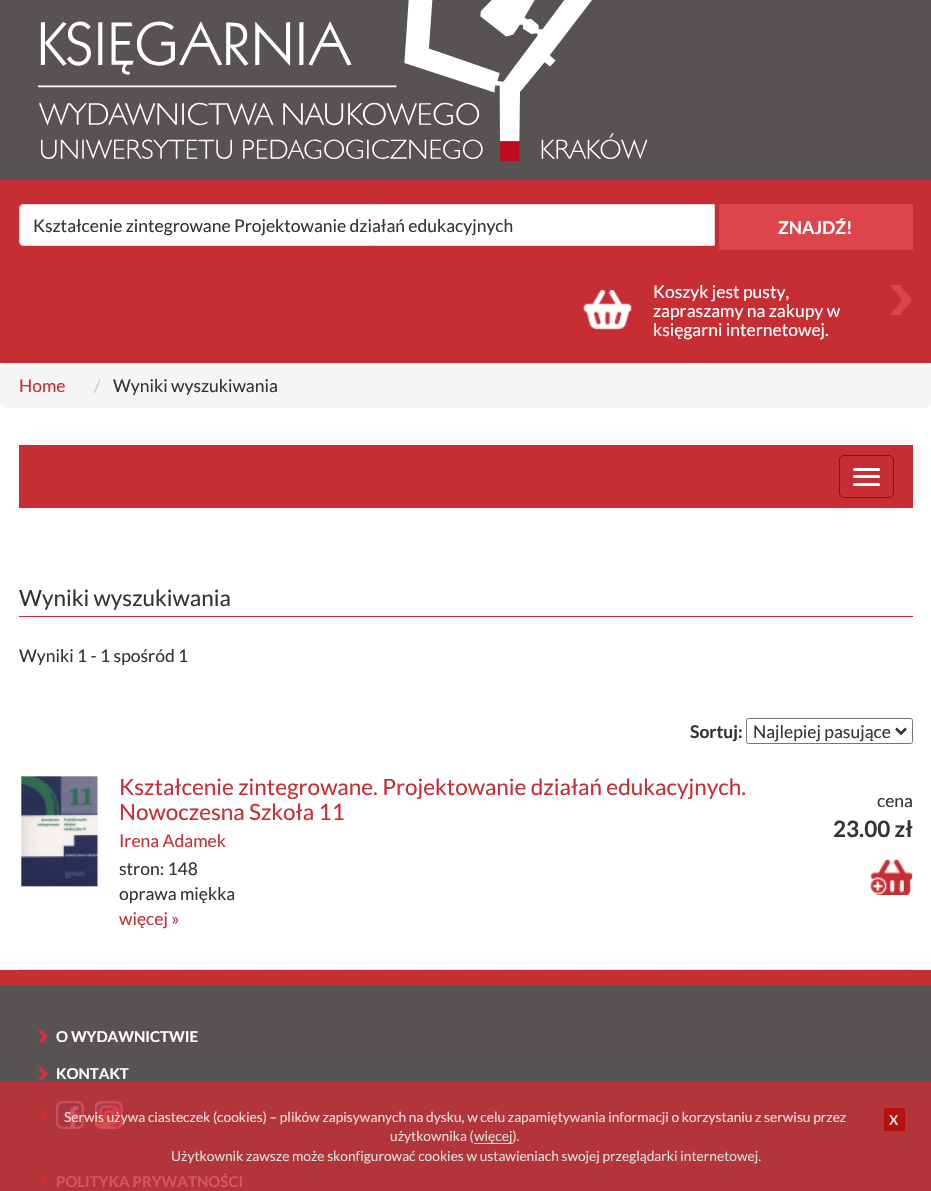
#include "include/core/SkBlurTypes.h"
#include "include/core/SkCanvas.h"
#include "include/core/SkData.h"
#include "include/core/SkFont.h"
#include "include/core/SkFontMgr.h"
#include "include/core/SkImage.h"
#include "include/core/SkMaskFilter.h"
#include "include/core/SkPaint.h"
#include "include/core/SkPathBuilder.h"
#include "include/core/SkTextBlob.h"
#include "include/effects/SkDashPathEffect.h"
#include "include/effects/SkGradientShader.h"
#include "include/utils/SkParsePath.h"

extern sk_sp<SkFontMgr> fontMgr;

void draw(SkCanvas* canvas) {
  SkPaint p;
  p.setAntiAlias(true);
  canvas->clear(SK_ColorWHITE);
  p.setColor(SkColorSetRGB(88, 83, 83));
  canvas->drawRect(SkRect::MakeLTRB(0, 0, 931, 180), p);
  canvas->drawImageRect(SkImages::DeferredFromEncodedData(SkData::MakeFromFileName("images/1.png")), SkRect::MakeLTRB(38, 0, 648, 161), SkSamplingOptions());
  p.setColor(SkColorSetRGB(199, 46, 52));
  canvas->drawRect(SkRect::MakeLTRB(0, 180, 931, 363), p);
  p.setColor(SK_ColorWHITE);
  canvas->drawPath(SkPathBuilder().moveTo(22.5f, 205).lineTo(714, 205).lineTo(714, 245).lineTo(22.5f, 245).cubicTo(21, 245, 20, 244, 20, 242.5f).lineTo(20, 207.5f).cubicTo(20, 206, 21, 205, 22.5f, 205).close().detach(), p);
  p.setStyle(SkPaint::kStroke_Style);
  p.setStrokeWidth(1);
  p.setColor(SkColorSetRGB(221, 221, 221));
  canvas->drawPath(SkPathBuilder().moveTo(23, 204.5f).lineTo(714.5f, 204.5f).lineTo(714.5f, 245.5f).lineTo(23, 245.5f).cubicTo(21, 245.5f, 19.5f, 244, 19.5f, 242).lineTo(19.5f, 208).cubicTo(19.5f, 206, 21, 204.5f, 23, 204.5f).close().detach(), p);
  p.setStyle(SkPaint::kFill_Style);
  p.setColor(SkColorSetRGB(222, 69, 75));
  canvas->drawRect(SkRect::MakeLTRB(719, 204, 913, 250), p);
  canvas->drawImageRect(SkImages::DeferredFromEncodedData(SkData::MakeFromFileName("images/2.png")), SkRect::MakeLTRB(583, 290, 632, 330), SkSamplingOptions());
  canvas->drawImageRect(SkImages::DeferredFromEncodedData(SkData::MakeFromFileName("images/3.png")), SkRect::MakeLTRB(890, 285, 913, 315), SkSamplingOptions());
  p.setColor(SkColorSetRGB(245, 245, 245));
  canvas->drawRoundRect(SkRect::MakeLTRB(0, 363, 931, 408), 5, 5, p);
  p.setColor(SkColorSetRGB(199, 46, 52));
  canvas->drawRect(SkRect::MakeLTRB(19, 445, 913, 508), p);
  p.setStyle(SkPaint::kStroke_Style);
  p.setColor(SkColorSetRGB(51, 51, 51));
  canvas->drawRoundRect(SkRect::MakeLTRB(839.5f, 455.5f, 893.5f, 497.5f), 4.5f, 4.5f, p);
  p.setStyle(SkPaint::kFill_Style);
  p.setColor(SK_ColorWHITE);
  canvas->drawRoundRect(SkRect::MakeLTRB(853, 468, 880, 471), 1.5f, 1.5f, p);
  canvas->drawRoundRect(SkRect::MakeLTRB(853, 475, 880, 478), 1.5f, 1.5f, p);
  canvas->drawRoundRect(SkRect::MakeLTRB(853, 483, 880, 486), 1.5f, 1.5f, p);
  p.setColor(SkColorSetRGB(199, 46, 52));
  canvas->drawRect(SkRect::MakeLTRB(19, 616, 913, 617), p);
  p.setStyle(SkPaint::kStroke_Style);
  p.setColor(SkColorSetRGB(118, 118, 118));
  canvas->drawRoundRect(SkRect::MakeLTRB(746.5f, 718.5f, 912.5f, 743.5f), 2, 2, p);
  p.setStrokeWidth(2.5f);
  p.setColor(SkColorSetRGB(51, 51, 51));
  canvas->drawPath(SkPathBuilder().moveTo(896, 728.5f).lineTo(901, 733.5f).lineTo(906, 728.5f).detach(), p);
  p.setStyle(SkPaint::kFill_Style);
  p.setColor(SkColorSetRGB(199, 46, 52));
  canvas->drawRect(SkRect::MakeLTRB(0, 970, 931, 985), p);
  p.setStyle(SkPaint::kStroke_Style);
  p.setStrokeWidth(1.2f);
  p.setColor(SkColorSetRGB(202, 202, 202));
  p.setPathEffect(SkDashPathEffect::Make({{1.25f, 1.25f}}, 0));
  canvas->drawPath(SkPathBuilder().moveTo(19, 969.5f).lineTo(912.5f, 969.5f).detach(), p);
  p.setPathEffect(nullptr);
  canvas->drawImageRect(SkImages::DeferredFromEncodedData(SkData::MakeFromFileName("images/4.png")), SkRect::MakeLTRB(19, 775, 99, 888), SkSamplingOptions());
  canvas->drawImageRect(SkImages::DeferredFromEncodedData(SkData::MakeFromFileName("images/5.png")), SkRect::MakeLTRB(870, 858, 913, 895), SkSamplingOptions());
  p.setStyle(SkPaint::kFill_Style);
  p.setColor(SkColorSetRGB(88, 83, 83));
  canvas->drawRect(SkRect::MakeLTRB(0, 985, 931, 1081), p);
  p.setColor(SkColorSetRGB(177, 53, 58));
  canvas->drawRect(SkRect::MakeLTRB(0, 1081, 931, 1191), p);
  canvas->drawImageRect(SkImages::DeferredFromEncodedData(SkData::MakeFromFileName("images/6.png")), SkRect::MakeLTRB(37, 1030, 48, 1043), SkSamplingOptions());
  canvas->drawImageRect(SkImages::DeferredFromEncodedData(SkData::MakeFromFileName("images/7.png")), SkRect::MakeLTRB(37, 1067, 48, 1080), SkSamplingOptions());
  canvas->drawImageRect(SkImages::DeferredFromEncodedData(SkData::MakeFromFileName("images/8.png")), SkRect::MakeLTRB(37, 1108, 48, 1122), SkSamplingOptions());
  canvas->drawImageRect(SkImages::DeferredFromEncodedData(SkData::MakeFromFileName("images/9.png")), SkRect::MakeLTRB(56, 1101, 84, 1129), SkSamplingOptions());
  canvas->drawImageRect(SkImages::DeferredFromEncodedData(SkData::MakeFromFileName("images/10.png")), SkRect::MakeLTRB(95, 1101, 123, 1129), SkSamplingOptions());
  canvas->drawImageRect(SkImages::DeferredFromEncodedData(SkData::MakeFromFileName("images/11.png")), SkRect::MakeLTRB(37, 1175, 48, 1188), SkSamplingOptions());
  p.setColor(SkColorSetRGB(181, 17, 17));
  canvas->drawRect(SkRect::MakeLTRB(884, 1108, 905, 1131), p);
  p.setColor(SkColorSetRGB(222, 221, 221));
  canvas->drawRect(SkRect::MakeLTRB(474, 1143, 513, 1144), p);
  SkFont font1(fontMgr->matchFamilyStyle("Lato", SkFontStyle::Normal()), 17.5f);
  font1.setSubpixel(true);
  p.setColor(SkColorSetRGB(51, 51, 51));
  canvas->drawString("Kształcenie zintegrowane Projektowanie działań edukacyjnych", 33, 232, font1, p);
  SkFont font2(fontMgr->matchFamilyStyle("Lato", SkFontStyle::Bold()), 17.5f);
  font2.setSubpixel(true);
  p.setColor(SK_ColorWHITE);
  canvas->drawString("ZNAJDŹ!", 778, 234, font2, p);
  canvas->drawString("Koszyk jest pusty,", 653, 298, font1, p);
  canvas->drawString("zapraszamy na zakupy w", 653, 317, font1, p);
  canvas->drawString("księgarni internetowej.", 653, 336, font1, p);
  p.setColor(SkColorSetRGB(199, 46, 52));
  canvas->drawString("Home", 19, 392, font1, p);
  p.setColor(SkColorSetRGB(204, 204, 204));
  canvas->drawString("/", 94, 392, font1, p);
  p.setColor(SkColorSetRGB(51, 51, 51));
  canvas->drawString("Wyniki wyszukiwania", 113, 392, font1, p);
  SkFont font3(fontMgr->matchFamilyStyle("Lato", SkFontStyle::Normal()), 22.5f);
  font3.setSubpixel(true);
  canvas->drawString("Wyniki wyszukiwania", 19, 606, font3, p);
  canvas->drawString("Wyniki 1 - 1 spośród 1", 19, 662, font1, p);
  canvas->drawString("Sortuj:", 690, 738, font2, p);
  canvas->drawString("Najlepiej pasujące", 753, 738, font1, p);
  p.setColor(SkColorSetRGB(199, 46, 52));
  canvas->drawString("Kształcenie zintegrowane. Projektowanie działań edukacyjnych.", 119, 795, font3, p);
  canvas->drawString("Nowoczesna Szkoła 11", 119, 820, font3, p);
  canvas->drawString("Irena Adamek", 119, 847, font1, p);
  p.setColor(SkColorSetRGB(51, 51, 51));
  canvas->drawString("stron: 148", 119, 875, font1, p);
  canvas->drawString("oprawa miękka", 119, 900, font1, p);
  p.setColor(SkColorSetRGB(199, 46, 52));
  canvas->drawString("więcej »", 119, 925, font1, p);
  p.setColor(SkColorSetRGB(51, 51, 51));
  canvas->drawString("cena", 877, 807, font1, p);
  SkFont font4(fontMgr->matchFamilyStyle("Lato", SkFontStyle::Bold()), 22.5f);
  font4.setSubpixel(true);
  canvas->drawString("23.00 zł", 833, 837, font4, p);
  SkFont font5(fontMgr->matchFamilyStyle("Lato", SkFontStyle::Bold()), 15);
  font5.setSubpixel(true);
  p.setColor(SK_ColorWHITE);
  canvas->drawString("O WYDAWNICTWIE", 56, 1042, font5, p);
  canvas->drawString("KONTAKT", 56, 1079, font5, p);
  p.setColor(SkColorSetRGB(210, 88, 93));
  canvas->drawString("POLITYKA PRYWATNOŚCI", 56, 1187, font5, p);
  SkFont font6(fontMgr->matchFamilyStyle("Lato", SkFontStyle::Normal()), 13.75f);
  font6.setSubpixel(true);
  p.setColor(SkColorSetRGB(240, 215, 216));
  canvas->drawString("Serwis używa ciasteczek (cookies) – plików zapisywanych na dysku, w celu zapamiętywania informacji o korzystaniu z serwisu przez", 64, 1122, font6, p);
  SkFont font7(fontMgr->matchFamilyStyle("Lato", SkFontStyle::Bold()), 13.75f);
  font7.setSubpixel(true);
  p.setColor(SkColorSetRGB(222, 221, 221));
  canvas->drawString("X", 889, 1125, font7, p);
  canvas->drawString("użytkownika (", 390, 1141, font6, p);
  canvas->drawString("więcej).", 474, 1141, font6, p);
  canvas->drawString("Użytkownik zawsze może skonfigurować cookies w ustawieniach swojej przeglądarki internetowej.", 171, 1161, font6, p);
}
